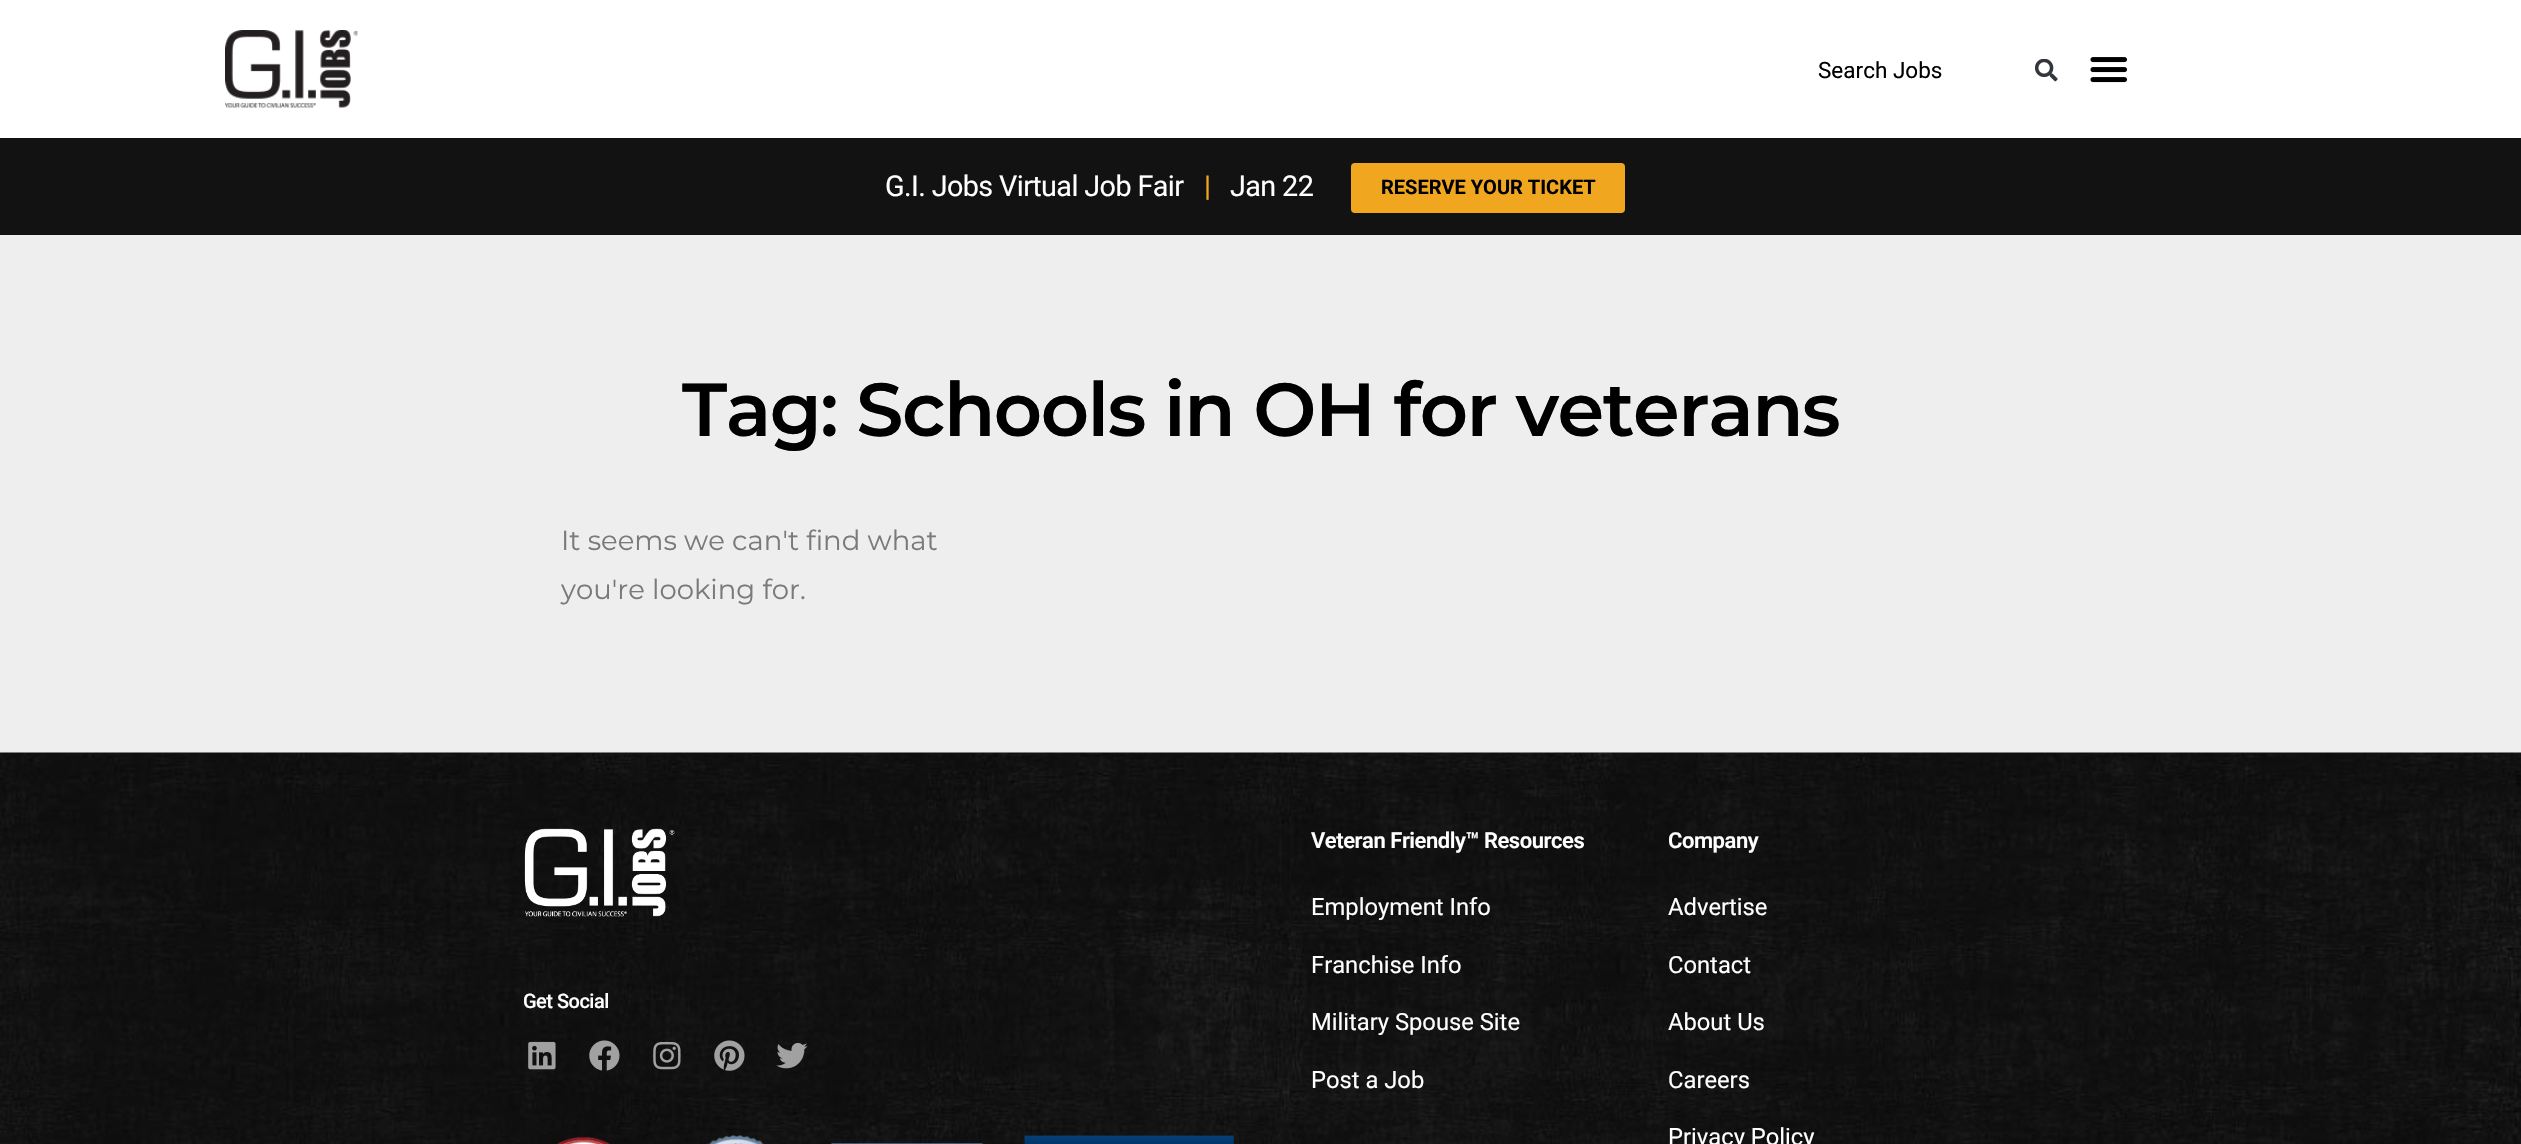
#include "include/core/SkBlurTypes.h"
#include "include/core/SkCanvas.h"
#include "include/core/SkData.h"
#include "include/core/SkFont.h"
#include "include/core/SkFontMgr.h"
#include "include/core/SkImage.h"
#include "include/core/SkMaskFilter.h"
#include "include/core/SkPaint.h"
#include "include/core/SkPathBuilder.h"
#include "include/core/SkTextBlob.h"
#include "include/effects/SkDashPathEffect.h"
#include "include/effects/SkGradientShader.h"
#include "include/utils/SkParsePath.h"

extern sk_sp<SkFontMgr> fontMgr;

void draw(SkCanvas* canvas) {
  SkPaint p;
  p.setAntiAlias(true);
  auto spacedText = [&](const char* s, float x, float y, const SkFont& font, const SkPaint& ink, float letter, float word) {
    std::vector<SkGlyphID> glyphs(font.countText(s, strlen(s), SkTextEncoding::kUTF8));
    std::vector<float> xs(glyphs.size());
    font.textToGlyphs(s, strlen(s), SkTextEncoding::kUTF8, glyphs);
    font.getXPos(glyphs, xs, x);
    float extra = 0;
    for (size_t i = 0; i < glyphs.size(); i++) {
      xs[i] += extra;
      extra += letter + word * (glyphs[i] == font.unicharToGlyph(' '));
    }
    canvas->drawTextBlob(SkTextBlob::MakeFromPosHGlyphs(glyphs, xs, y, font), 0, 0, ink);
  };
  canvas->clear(SK_ColorWHITE);
  canvas->drawImageRect(SkImages::DeferredFromEncodedData(SkData::MakeFromFileName("images/1.png")), SkRect::MakeLTRB(225, 30, 358, 108), SkSamplingOptions());
  canvas->drawImageRect(SkImages::DeferredFromEncodedData(SkData::MakeFromFileName("images/2.png")), SkRect::MakeLTRB(2035, 59, 2058, 82), SkSamplingOptions());
  canvas->drawImageRect(SkImages::DeferredFromEncodedData(SkData::MakeFromFileName("images/3.png")), SkRect::MakeLTRB(2090, 57, 2128, 83), SkSamplingOptions());
  p.setColor(SkColorSetRGB(18, 18, 18));
  canvas->drawRect(SkRect::MakeLTRB(0, 138, 2521, 235), p);
  p.setColor(SkColorSetRGB(240, 167, 31));
  canvas->drawRoundRect(SkRect::MakeLTRB(1351, 163, 1625, 213), 4, 4, p);
  p.setColor(SkColorSetRGB(238, 238, 238));
  canvas->drawRect(SkRect::MakeLTRB(0, 235, 2521, 753), p);
  canvas->drawImageRect(SkImages::DeferredFromEncodedData(SkData::MakeFromFileName("images/4.png")), SkRect::MakeLTRB(0, 752, 2521, 1144), SkSamplingOptions());
  canvas->drawImageRect(SkImages::DeferredFromEncodedData(SkData::MakeFromFileName("images/5.png")), SkRect::MakeLTRB(524, 828, 675, 917), SkSamplingOptions());
  canvas->drawImageRect(SkImages::DeferredFromEncodedData(SkData::MakeFromFileName("images/6.png")), SkRect::MakeLTRB(528, 1041, 556, 1070), SkSamplingOptions());
  canvas->drawImageRect(SkImages::DeferredFromEncodedData(SkData::MakeFromFileName("images/7.png")), SkRect::MakeLTRB(589, 1040, 620, 1071), SkSamplingOptions());
  canvas->drawImageRect(SkImages::DeferredFromEncodedData(SkData::MakeFromFileName("images/8.png")), SkRect::MakeLTRB(653, 1041, 681, 1070), SkSamplingOptions());
  canvas->drawImageRect(SkImages::DeferredFromEncodedData(SkData::MakeFromFileName("images/9.png")), SkRect::MakeLTRB(714, 1040, 745, 1071), SkSamplingOptions());
  canvas->drawImageRect(SkImages::DeferredFromEncodedData(SkData::MakeFromFileName("images/10.png")), SkRect::MakeLTRB(776, 1042, 808, 1069), SkSamplingOptions());
  canvas->drawImageRect(SkImages::DeferredFromEncodedData(SkData::MakeFromFileName("images/11.png")), SkRect::MakeLTRB(557, 1135, 1234, 1144), SkSamplingOptions());
  SkFont font1(fontMgr->matchFamilyStyle("Roboto", SkFontStyle::Normal()), 22.5f);
  font1.setSubpixel(true);
  p.setColor(SK_ColorBLACK);
  canvas->drawString("Search Jobs", 1818, 78, font1, p);
  SkFont font2(fontMgr->matchFamilyStyle("Roboto", SkFontStyle::Normal()), 28.75f);
  font2.setSubpixel(true);
  p.setColor(SK_ColorWHITE);
  spacedText("G.I. Jobs Virtual Job Fair", 885, 196, font2, p, -0.6f, 0);
  p.setColor(SkColorSetRGB(240, 167, 31));
  spacedText("|", 1204, 196, font2, p, -0.6f, 0);
  p.setColor(SK_ColorWHITE);
  spacedText("Jan 22", 1230, 196, font2, p, -0.6f, 0);
  SkFont font3(fontMgr->matchFamilyStyle("Roboto", SkFontStyle::Bold()), 20);
  font3.setSubpixel(true);
  p.setColor(SK_ColorBLACK);
  canvas->drawString("RESERVE YOUR TICKET", 1381, 194, font3, p);
  SkFont font4(fontMgr->matchFamilyStyle("Montserrat", SkFontStyle(600, SkFontStyle::kNormal_Width, SkFontStyle::kUpright_Slant)), 75);
  font4.setSubpixel(true);
  spacedText("Tag: Schools in OH for veterans", 682, 436, font4, p, -1.5f, 0);
  SkFont font5(fontMgr->matchFamilyStyle("Montserrat", SkFontStyle::Normal()), 27.5f);
  font5.setSubpixel(true);
  p.setColor(SkColorSetRGB(122, 122, 122));
  canvas->drawString("It seems we can't find what", 561, 550, font5, p);
  canvas->drawString("you're looking for.", 561, 599, font5, p);
  SkFont font6(fontMgr->matchFamilyStyle("Roboto", SkFontStyle(500, SkFontStyle::kNormal_Width, SkFontStyle::kUpright_Slant)), 20);
  font6.setSubpixel(true);
  p.setColor(SK_ColorWHITE);
  spacedText("Get Social", 523, 1008, font6, p, -0.5f, 0);
  SkFont font7(fontMgr->matchFamilyStyle("Roboto", SkFontStyle(600, SkFontStyle::kNormal_Width, SkFontStyle::kUpright_Slant)), 22);
  font7.setSubpixel(true);
  spacedText("Veteran Friendly™ Resources", 1311, 848, font7, p, -0.45f, 0);
  SkFont font8(fontMgr->matchFamilyStyle("Roboto", SkFontStyle::Normal()), 23.75f);
  font8.setSubpixel(true);
  canvas->drawString("Employment Info", 1311, 915, font8, p);
  canvas->drawString("Franchise Info", 1311, 973, font8, p);
  canvas->drawString("Military Spouse Site", 1311, 1030, font8, p);
  canvas->drawString("Post a Job", 1311, 1088, font8, p);
  spacedText("Company", 1668, 848, font7, p, -0.45f, 0);
  canvas->drawString("Advertise", 1668, 915, font8, p);
  canvas->drawString("Contact", 1668, 973, font8, p);
  canvas->drawString("About Us", 1668, 1030, font8, p);
  canvas->drawString("Careers", 1668, 1088, font8, p);
  canvas->drawString("Privacy Policy", 1668, 1145, font8, p);
}
